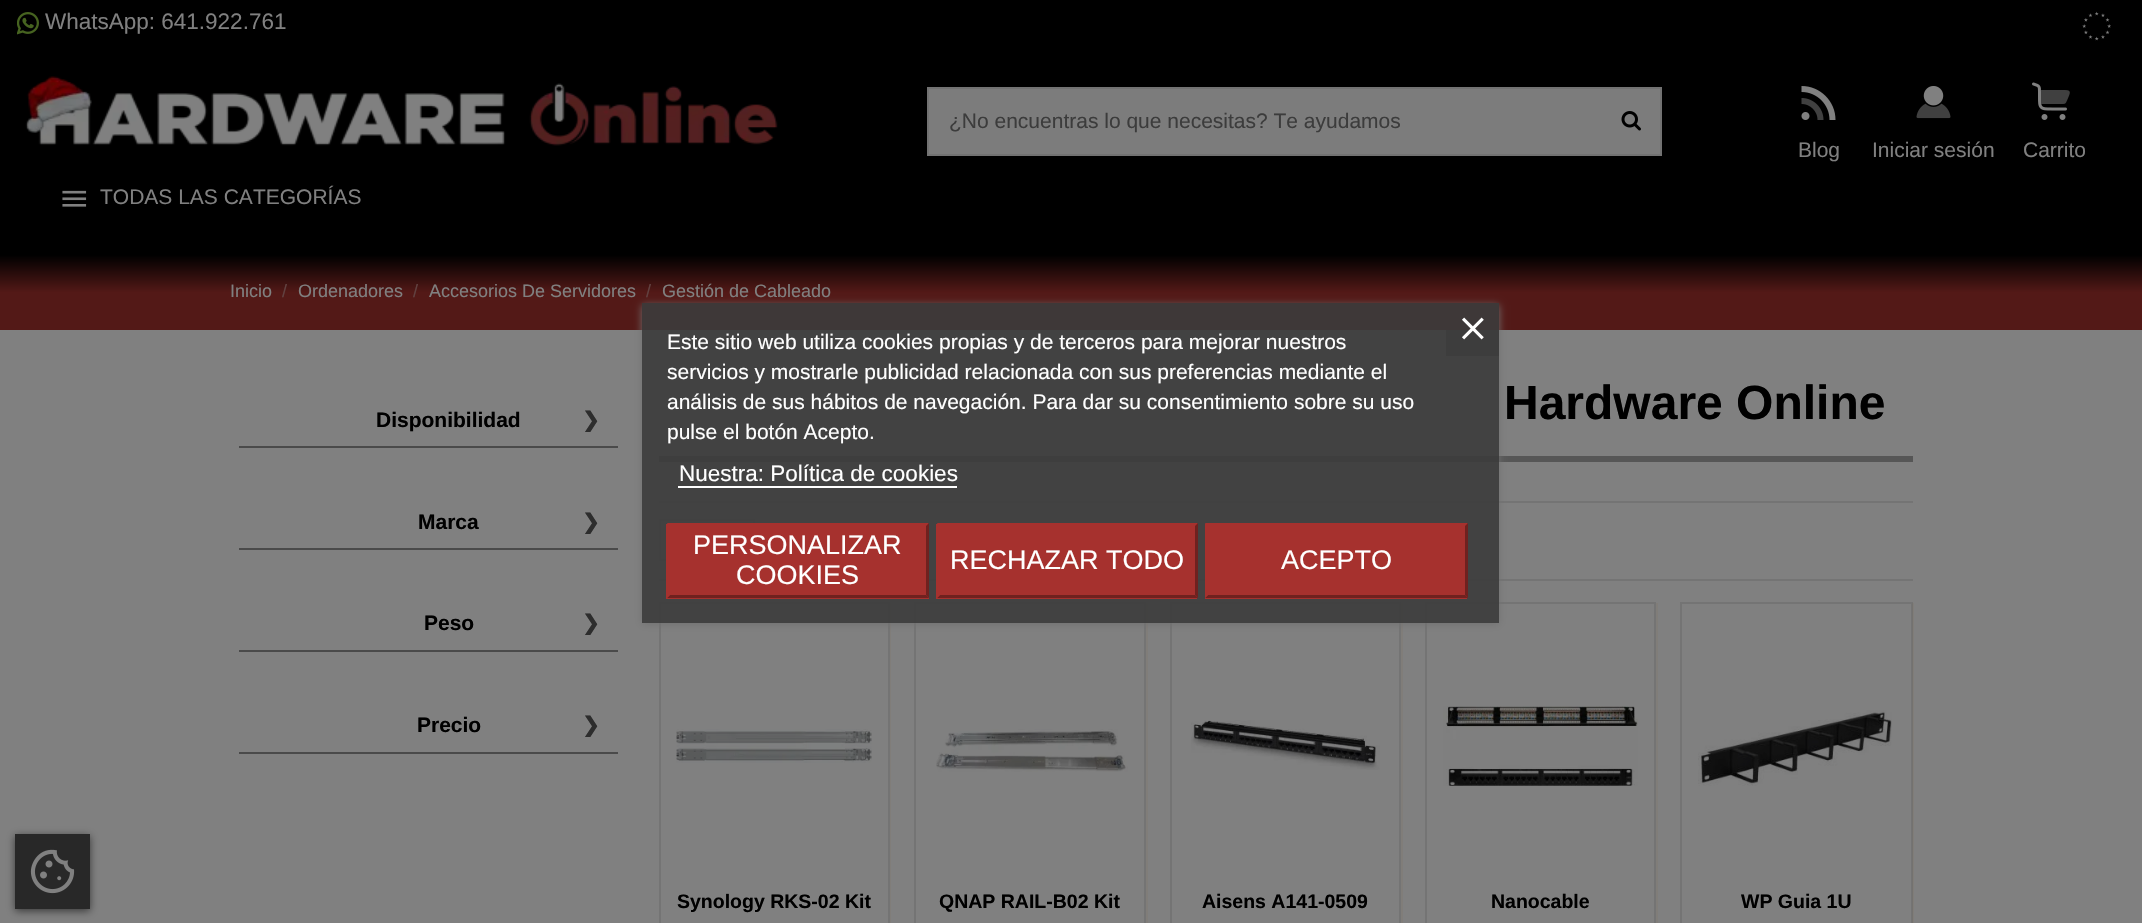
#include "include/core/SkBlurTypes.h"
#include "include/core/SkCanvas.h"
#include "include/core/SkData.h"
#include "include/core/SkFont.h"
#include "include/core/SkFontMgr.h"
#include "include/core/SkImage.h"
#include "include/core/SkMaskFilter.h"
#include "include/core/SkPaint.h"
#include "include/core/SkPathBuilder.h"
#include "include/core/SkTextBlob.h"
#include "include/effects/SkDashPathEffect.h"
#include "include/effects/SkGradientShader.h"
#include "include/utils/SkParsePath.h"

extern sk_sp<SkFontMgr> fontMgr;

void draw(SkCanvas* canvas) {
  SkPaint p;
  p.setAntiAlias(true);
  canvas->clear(SkColorSetRGB(128, 128, 128));
  p.setColor(SK_ColorBLACK);
  canvas->drawRect(SkRect::MakeLTRB(0, 254, 2142, 255), p);
  {
    const SkColor colors[] = {SkColorSetRGB(83, 25, 23), SK_ColorBLACK};
    const float stops[] = {0.5f, 1};
    const SkPoint ends[] = {{1071, 330}, {1071, 255}};
    p.setShader(SkGradientShader::MakeLinear(ends, colors, stops, 2, SkTileMode::kClamp));
    p.setAlpha(255);
  }
  canvas->drawRect(SkRect::MakeLTRB(0, 255, 2142, 330), p);
  p.setShader(nullptr);
  p.setColor(SkColorSetARGB(23, 0, 0, 0));
  p.setMaskFilter(SkMaskFilter::MakeBlur(kNormal_SkBlurStyle, 11));
  canvas->drawRect(SkRect::MakeLTRB(8, 0, 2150, 254), p);
  p.setMaskFilter(nullptr);
  p.setColor(SK_ColorBLACK);
  canvas->drawRect(SkRect::MakeLTRB(0, 0, 2142, 254), p);
  canvas->drawImageRect(SkImages::DeferredFromEncodedData(SkData::MakeFromFileName("images/1.png")), SkRect::MakeLTRB(17, 12, 39, 35), SkSamplingOptions());
  canvas->drawImageRect(SkImages::DeferredFromEncodedData(SkData::MakeFromFileName("images/2.png")), SkRect::MakeLTRB(2082, 11, 2111, 41), SkSamplingOptions());
  canvas->drawImageRect(SkImages::DeferredFromEncodedData(SkData::MakeFromFileName("images/3.png")), SkRect::MakeLTRB(25, 76, 778, 146), SkSamplingOptions());
  p.setColor(SkColorSetRGB(124, 124, 124));
  canvas->drawRect(SkRect::MakeLTRB(928, 88, 1661, 155), p);
  p.setStyle(SkPaint::kStroke_Style);
  p.setStrokeWidth(2);
  p.setColor(SkColorSetRGB(114, 114, 114));
  canvas->drawRect(SkRect::MakeLTRB(928, 88, 1661, 155), p);
  canvas->drawImageRect(SkImages::DeferredFromEncodedData(SkData::MakeFromFileName("images/4.png")), SkRect::MakeLTRB(1621, 111, 1641, 131), SkSamplingOptions());
  canvas->drawImageRect(SkImages::DeferredFromEncodedData(SkData::MakeFromFileName("images/5.png")), SkRect::MakeLTRB(1801, 86, 1836, 120), SkSamplingOptions());
  canvas->drawImageRect(SkImages::DeferredFromEncodedData(SkData::MakeFromFileName("images/6.png")), SkRect::MakeLTRB(1916, 86, 1951, 119), SkSamplingOptions());
  canvas->drawImageRect(SkImages::DeferredFromEncodedData(SkData::MakeFromFileName("images/7.png")), SkRect::MakeLTRB(2032, 82, 2070, 120), SkSamplingOptions());
  canvas->drawImageRect(SkImages::DeferredFromEncodedData(SkData::MakeFromFileName("images/8.png")), SkRect::MakeLTRB(62, 190, 87, 207), SkSamplingOptions());
  p.setStyle(SkPaint::kFill_Style);
  p.setColor(SkColorSetRGB(86, 86, 86));
  canvas->drawRect(SkRect::MakeLTRB(659, 456, 1913, 462), p);
  p.setColor(SkColorSetRGB(116, 116, 116));
  canvas->drawRect(SkRect::MakeLTRB(659, 501, 1913, 503), p);
  canvas->drawRect(SkRect::MakeLTRB(659, 579, 1913, 581), p);
  p.setColor(SkColorSetRGB(124, 124, 124));
  canvas->drawRect(SkRect::MakeLTRB(660, 520, 754, 560), p);
  p.setStyle(SkPaint::kStroke_Style);
  p.setColor(SkColorSetRGB(114, 114, 114));
  canvas->drawRect(SkRect::MakeLTRB(660, 520, 754, 560), p);
  p.setStyle(SkPaint::kFill_Style);
  p.setColor(SkColorSetRGB(128, 125, 121));
  canvas->drawPath(SkPathBuilder().moveTo(660, 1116).lineTo(660, 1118).lineTo(891, 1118).lineTo(891, 603).lineTo(890, 603).lineTo(890, 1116).close().detach(), p);
  p.setStyle(SkPaint::kStroke_Style);
  p.setColor(SkColorSetRGB(116, 116, 116));
  canvas->drawRect(SkRect::MakeLTRB(660, 603, 889, 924), p);
  p.setStyle(SkPaint::kFill_Style);
  p.setColor(SkColorSetRGB(128, 125, 121));
  canvas->drawPath(SkPathBuilder().moveTo(915, 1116).lineTo(915, 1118).lineTo(1148, 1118).lineTo(1148, 603).lineTo(1146, 603).lineTo(1146, 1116).close().detach(), p);
  p.setStyle(SkPaint::kStroke_Style);
  p.setColor(SkColorSetRGB(116, 116, 116));
  canvas->drawRect(SkRect::MakeLTRB(915, 603, 1145, 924), p);
  p.setStyle(SkPaint::kFill_Style);
  p.setColor(SkColorSetRGB(128, 125, 121));
  canvas->drawPath(SkPathBuilder().moveTo(1172, 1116).lineTo(1172, 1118).lineTo(1403, 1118).lineTo(1403, 603).lineTo(1401, 603).lineTo(1401, 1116).close().detach(), p);
  p.setStyle(SkPaint::kStroke_Style);
  p.setColor(SkColorSetRGB(116, 116, 116));
  canvas->drawRect(SkRect::MakeLTRB(1171, 603, 1400, 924), p);
  canvas->drawRect(SkRect::MakeLTRB(1426, 603, 1655, 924), p);
  canvas->save();
  canvas->clipPath(SkPathBuilder(SkPathFillType::kEvenOdd).moveTo(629, 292).lineTo(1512, 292).lineTo(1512, 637).lineTo(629, 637).close().moveTo(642, 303).lineTo(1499, 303).lineTo(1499, 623).lineTo(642, 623).close().detach(), true);
  p.setStyle(SkPaint::kFill_Style);
  p.setColor(SkColorSetRGB(112, 112, 112));
  p.setMaskFilter(SkMaskFilter::MakeBlur(kNormal_SkBlurStyle, 4));
  canvas->drawRect(SkRect::MakeLTRB(642, 305, 1499, 624), p);
  p.setMaskFilter(nullptr);
  canvas->restore();
  p.setColor(SkColorSetARGB(230, 59, 59, 59));
  canvas->drawRect(SkRect::MakeLTRB(642, 303, 1499, 623), p);
  p.setColor(SK_ColorWHITE);
  canvas->drawRect(SkRect::MakeLTRB(678, 486, 957, 488), p);
  p.setColor(SkColorSetRGB(166, 49, 46));
  canvas->drawRect(SkRect::MakeLTRB(666, 524, 929, 599), p);
  canvas->drawPath(SkPathBuilder().moveTo(667, 523).lineTo(929, 523).lineTo(926, 526).lineTo(670, 526).close().detach(), p);
  p.setColor(SkColorSetRGB(111, 33, 31));
  canvas->drawPath(SkPathBuilder().moveTo(929, 523).lineTo(929, 598).lineTo(926, 595).lineTo(926, 526).close().detach(), p);
  canvas->drawPath(SkPathBuilder().moveTo(929, 598).lineTo(667, 598).lineTo(670, 595).lineTo(926, 595).close().detach(), p);
  p.setColor(SkColorSetRGB(166, 49, 46));
  canvas->drawPath(SkPathBuilder().moveTo(667, 598).lineTo(667, 523).lineTo(670, 526).lineTo(670, 595).close().detach(), p);
  canvas->drawRect(SkRect::MakeLTRB(936, 524, 1197, 599), p);
  canvas->drawPath(SkPathBuilder().moveTo(937, 523).lineTo(1198, 523).lineTo(1195, 526).lineTo(940, 526).close().detach(), p);
  p.setColor(SkColorSetRGB(111, 33, 31));
  canvas->drawPath(SkPathBuilder().moveTo(1198, 523).lineTo(1198, 598).lineTo(1195, 595).lineTo(1195, 526).close().detach(), p);
  canvas->drawPath(SkPathBuilder().moveTo(1198, 598).lineTo(937, 598).lineTo(940, 595).lineTo(1195, 595).close().detach(), p);
  p.setColor(SkColorSetRGB(166, 49, 46));
  canvas->drawPath(SkPathBuilder().moveTo(937, 598).lineTo(937, 523).lineTo(940, 526).lineTo(940, 595).close().detach(), p);
  canvas->drawRect(SkRect::MakeLTRB(1205, 524, 1467, 599), p);
  canvas->drawPath(SkPathBuilder().moveTo(1205, 523).lineTo(1468, 523).lineTo(1465, 526).lineTo(1208, 526).close().detach(), p);
  p.setColor(SkColorSetRGB(111, 33, 31));
  canvas->drawPath(SkPathBuilder().moveTo(1468, 523).lineTo(1468, 598).lineTo(1465, 595).lineTo(1465, 526).close().detach(), p);
  canvas->drawPath(SkPathBuilder().moveTo(1468, 598).lineTo(1205, 598).lineTo(1208, 595).lineTo(1465, 595).close().detach(), p);
  p.setColor(SkColorSetRGB(166, 49, 46));
  canvas->drawPath(SkPathBuilder().moveTo(1205, 598).lineTo(1205, 523).lineTo(1208, 526).lineTo(1208, 595).close().detach(), p);
  p.setColor(SkColorSetARGB(179, 59, 59, 59));
  canvas->drawRect(SkRect::MakeLTRB(1446, 330, 1499, 356), p);
  canvas->drawImageRect(SkImages::DeferredFromEncodedData(SkData::MakeFromFileName("images/9.png")), SkRect::MakeLTRB(1462, 317, 1484, 340), SkSamplingOptions());
  p.setColor(SkColorSetRGB(56, 56, 56));
  p.setMaskFilter(SkMaskFilter::MakeBlur(kNormal_SkBlurStyle, 4));
  canvas->drawRect(SkRect::MakeLTRB(15, 836, 90, 911), p);
  p.setMaskFilter(nullptr);
  p.setColor(SkColorSetRGB(40, 40, 40));
  canvas->drawRect(SkRect::MakeLTRB(15, 834, 90, 909), p);
  canvas->drawImageRect(SkImages::DeferredFromEncodedData(SkData::MakeFromFileName("images/10.png")), SkRect::MakeLTRB(30, 849, 75, 894), SkSamplingOptions());
  p.setColor(SkColorSetRGB(74, 74, 74));
  canvas->drawRect(SkRect::MakeLTRB(239, 446, 618, 448), p);
  canvas->drawRect(SkRect::MakeLTRB(239, 548, 618, 550), p);
  canvas->drawRect(SkRect::MakeLTRB(239, 650, 618, 652), p);
  canvas->drawRect(SkRect::MakeLTRB(239, 752, 618, 754), p);
  canvas->drawImageRect(SkImages::DeferredFromEncodedData(SkData::MakeFromFileName("images/11.png")), SkRect::MakeLTRB(676, 729, 872, 763), SkSamplingOptions());
  canvas->drawImageRect(SkImages::DeferredFromEncodedData(SkData::MakeFromFileName("images/12.png")), SkRect::MakeLTRB(936, 729, 1128, 772), SkSamplingOptions());
  canvas->drawImageRect(SkImages::DeferredFromEncodedData(SkData::MakeFromFileName("images/13.png")), SkRect::MakeLTRB(1191, 720, 1380, 770), SkSamplingOptions());
  p.setColor(SkColorSetRGB(128, 125, 121));
  canvas->drawPath(SkPathBuilder().moveTo(1427, 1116).lineTo(1427, 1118).lineTo(1658, 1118).lineTo(1658, 603).lineTo(1656, 603).lineTo(1656, 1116).close().detach(), p);
  canvas->drawImageRect(SkImages::DeferredFromEncodedData(SkData::MakeFromFileName("images/14.png")), SkRect::MakeLTRB(1443, 706, 1638, 786), SkSamplingOptions());
  canvas->drawPath(SkPathBuilder().moveTo(1682, 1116).lineTo(1682, 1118).lineTo(1914, 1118).lineTo(1914, 603).lineTo(1912, 603).lineTo(1912, 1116).close().detach(), p);
  p.setStyle(SkPaint::kStroke_Style);
  p.setColor(SkColorSetARGB(64, 80, 80, 80));
  canvas->drawRect(SkRect::MakeLTRB(1681, 603, 1912, 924), p);
  canvas->drawImageRect(SkImages::DeferredFromEncodedData(SkData::MakeFromFileName("images/15.png")), SkRect::MakeLTRB(1698, 710, 1892, 786), SkSamplingOptions());
  SkFont font1(fontMgr->matchFamilyStyle("Liberation Sans", SkFontStyle::Normal()), 22.5f);
  font1.setSubpixel(true);
  p.setStyle(SkPaint::kFill_Style);
  p.setColor(SkColorSetRGB(128, 128, 128));
  canvas->drawString("WhatsApp: 641.922.761", 45, 29, font1, p);
  SkFont font2(fontMgr->matchFamilyStyle("Liberation Sans", SkFontStyle::Normal()), 21);
  font2.setSubpixel(true);
  p.setColor(SkColorSetRGB(60, 60, 60));
  canvas->drawString("¿No encuentras lo que necesitas? Te ayudamos", 949, 128, font2, p);
  p.setColor(SkColorSetRGB(128, 128, 128));
  canvas->drawString("Blog", 1798, 157, font2, p);
  canvas->drawString("Iniciar sesión", 1872, 157, font2, p);
  canvas->drawString("Carrito", 2023, 157, font2, p);
  canvas->drawString("TODAS LAS CATEGORÍAS", 100, 204, font2, p);
  p.setColor(SK_ColorWHITE);
  canvas->drawString("Este sitio web utiliza cookies propias y de terceros para mejorar nuestros", 667, 349, font2, p);
  canvas->drawString("servicios y mostrarle publicidad relacionada con sus preferencias mediante el", 667, 379, font2, p);
  canvas->drawString("análisis de sus hábitos de navegación. Para dar su consentimiento sobre su uso", 667, 409, font2, p);
  canvas->drawString("pulse el botón Acepto.", 667, 439, font2, p);
  canvas->drawString("Nuestra: Política de cookies", 679, 481, font1, p);
  SkFont font3(fontMgr->matchFamilyStyle("Liberation Sans", SkFontStyle::Normal()), 27);
  font3.setSubpixel(true);
  canvas->drawString("PERSONALIZAR", 693, 554, font3, p);
  canvas->drawString("COOKIES", 736, 584, font3, p);
  canvas->drawString("RECHAZAR TODO", 950, 569, font3, p);
  canvas->drawString("ACEPTO", 1281, 569, font3, p);
  SkFont font4(fontMgr->matchFamilyStyle("Liberation Sans", SkFontStyle::Normal()), 18);
  font4.setSubpixel(true);
  p.setColor(SkColorSetRGB(128, 128, 128));
  canvas->drawString("Inicio", 230, 297, font4, p);
  p.setColor(SkColorSetRGB(97, 65, 64));
  canvas->drawString("/", 282, 297, font4, p);
  p.setColor(SkColorSetRGB(128, 128, 128));
  canvas->drawString("Ordenadores", 298, 297, font4, p);
  p.setColor(SkColorSetRGB(97, 65, 64));
  canvas->drawString("/", 413, 297, font4, p);
  p.setColor(SkColorSetRGB(128, 128, 128));
  canvas->drawString("Accesorios De Servidores", 429, 297, font4, p);
  p.setColor(SkColorSetRGB(97, 65, 64));
  canvas->drawString("/", 646, 297, font4, p);
  p.setColor(SkColorSetRGB(128, 128, 128));
  canvas->drawString("Gestión de Cableado", 662, 297, font4, p);
  SkFont font5(fontMgr->matchFamilyStyle("Liberation Sans", SkFontStyle::Bold()), 21);
  font5.setSubpixel(true);
  p.setColor(SK_ColorBLACK);
  canvas->drawString("Disponibilidad", 376, 427, font5, p);
  SkFont font6(fontMgr->matchFamilyStyle("DejaVu Sans", SkFontStyle::Bold()), 21);
  font6.setSubpixel(true);
  p.setColor(SkColorSetRGB(45, 45, 45));
  canvas->drawString("❯", 582, 427, font6, p);
  p.setColor(SK_ColorBLACK);
  canvas->drawString("Marca", 418, 529, font5, p);
  p.setColor(SkColorSetRGB(45, 45, 45));
  canvas->drawString("❯", 582, 529, font6, p);
  p.setColor(SK_ColorBLACK);
  canvas->drawString("Peso", 424, 630, font5, p);
  p.setColor(SkColorSetRGB(45, 45, 45));
  canvas->drawString("❯", 582, 630, font6, p);
  p.setColor(SK_ColorBLACK);
  canvas->drawString("Precio", 417, 732, font5, p);
  p.setColor(SkColorSetRGB(45, 45, 45));
  canvas->drawString("❯", 582, 732, font6, p);
  SkFont font7(fontMgr->matchFamilyStyle("Liberation Sans", SkFontStyle::Bold()), 48);
  font7.setSubpixel(true);
  p.setColor(SK_ColorBLACK);
  canvas->drawString("Hardware Online", 1504, 419, font7, p);
  SkFont font8(fontMgr->matchFamilyStyle("Liberation Sans", SkFontStyle::Bold()), 19.5f);
  font8.setSubpixel(true);
  canvas->drawString("Synology RKS-02 Kit", 677, 908, font8, p);
  canvas->drawString("QNAP RAIL-B02 Kit", 939, 908, font8, p);
  canvas->drawString("Aisens A141-0509", 1202, 908, font8, p);
  canvas->drawString("Nanocable", 1491, 908, font8, p);
  canvas->drawString("WP Guia 1U", 1741, 908, font8, p);
}
